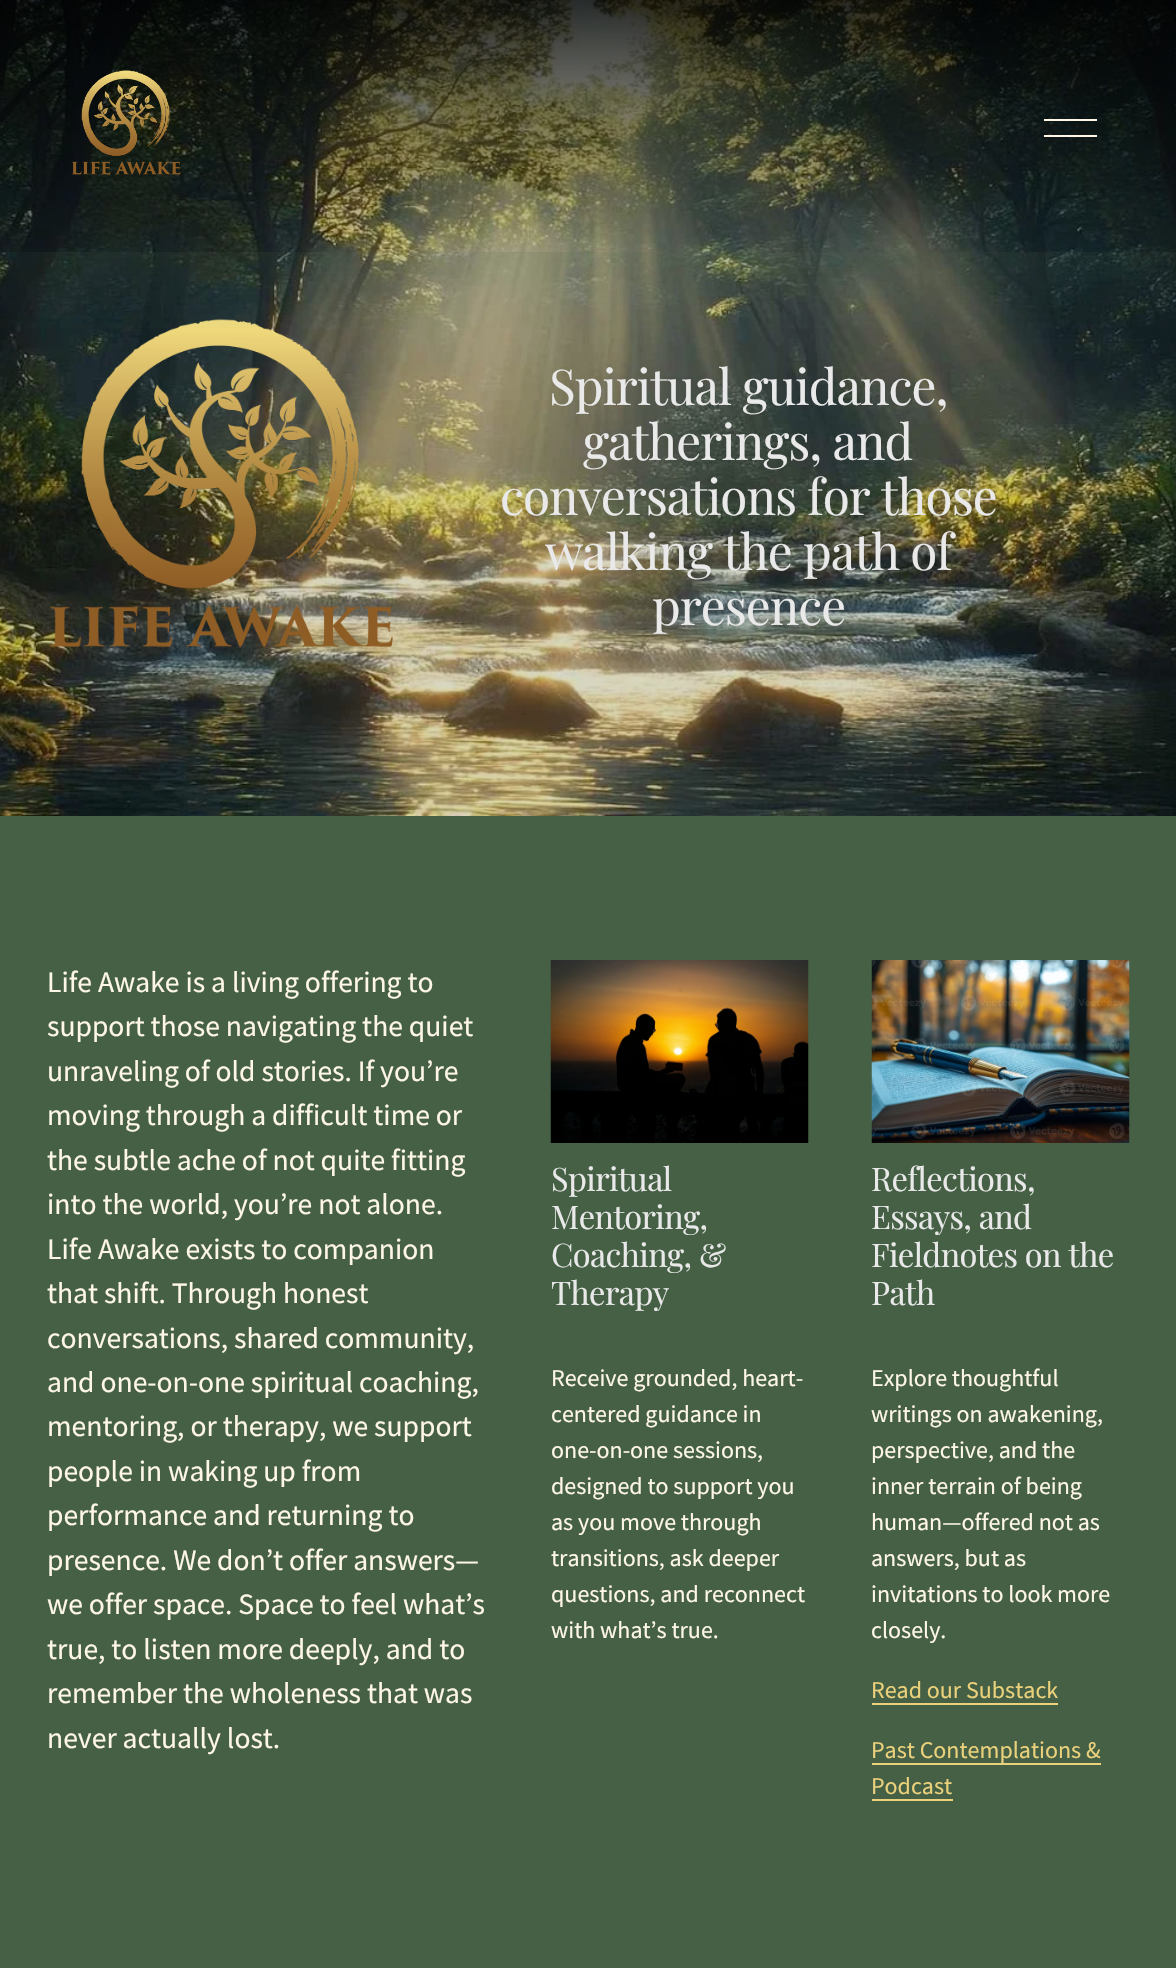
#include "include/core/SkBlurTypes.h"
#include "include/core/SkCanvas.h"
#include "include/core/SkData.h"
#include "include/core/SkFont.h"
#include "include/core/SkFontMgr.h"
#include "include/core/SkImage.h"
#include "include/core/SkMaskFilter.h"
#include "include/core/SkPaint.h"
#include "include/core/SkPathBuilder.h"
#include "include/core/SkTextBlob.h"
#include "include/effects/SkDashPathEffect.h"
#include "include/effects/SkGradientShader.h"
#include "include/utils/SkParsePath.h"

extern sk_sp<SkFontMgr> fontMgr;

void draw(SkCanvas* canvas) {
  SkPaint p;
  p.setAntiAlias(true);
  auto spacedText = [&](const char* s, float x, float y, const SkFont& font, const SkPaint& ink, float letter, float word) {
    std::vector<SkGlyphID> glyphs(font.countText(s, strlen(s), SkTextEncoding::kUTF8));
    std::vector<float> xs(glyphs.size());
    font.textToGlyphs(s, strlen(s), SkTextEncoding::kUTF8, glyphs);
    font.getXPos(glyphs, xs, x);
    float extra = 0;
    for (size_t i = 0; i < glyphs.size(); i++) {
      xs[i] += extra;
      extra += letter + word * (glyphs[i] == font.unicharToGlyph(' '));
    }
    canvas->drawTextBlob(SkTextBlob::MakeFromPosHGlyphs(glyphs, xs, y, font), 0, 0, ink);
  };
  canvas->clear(SK_ColorWHITE);
  canvas->drawImageRect(SkImages::DeferredFromEncodedData(SkData::MakeFromFileName("images/2.png")), SkRect::MakeLTRB(0, 0, 1176, 816), SkSamplingOptions());
  canvas->drawImageRect(SkImages::DeferredFromEncodedData(SkData::MakeFromFileName("images/3.png")), SkRect::MakeLTRB(50, 319, 393, 648), SkSamplingOptions());
  canvas->save();
  canvas->clipRect(SkRect::MakeLTRB(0, 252, 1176, 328));
  p.setColor(SkColorSetARGB(38, 69, 96, 69));
  p.setMaskFilter(SkMaskFilter::MakeBlur(kNormal_SkBlurStyle, 36));
  canvas->drawRect(SkRect::MakeLTRB(-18, 0, 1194, 288), p);
  p.setMaskFilter(nullptr);
  canvas->restore();
  canvas->drawImageRect(SkImages::DeferredFromEncodedData(SkData::MakeFromFileName("images/1.png")), SkRect::MakeLTRB(71, 70, 181, 175), SkSamplingOptions());
  p.setColor(SkColorSetRGB(254, 246, 230));
  canvas->drawRect(SkRect::MakeLTRB(1044, 119, 1097, 121), p);
  canvas->drawRect(SkRect::MakeLTRB(1044, 135, 1097, 137), p);
  p.setColor(SkColorSetRGB(69, 96, 69));
  canvas->drawRect(SkRect::MakeLTRB(0, 816, 1176, 1968), p);
  canvas->drawImageRect(SkImages::DeferredFromEncodedData(SkData::MakeFromFileName("images/4.png")), SkRect::MakeLTRB(550, 960, 809, 1143), SkSamplingOptions());
  canvas->drawImageRect(SkImages::DeferredFromEncodedData(SkData::MakeFromFileName("images/5.png")), SkRect::MakeLTRB(871, 960, 1130, 1143), SkSamplingOptions());
  p.setColor(SkColorSetRGB(235, 209, 123));
  canvas->drawRect(SkRect::MakeLTRB(872, 1703, 1058, 1705), p);
  canvas->drawRect(SkRect::MakeLTRB(872, 1763, 1101, 1765), p);
  canvas->drawRect(SkRect::MakeLTRB(872, 1799, 953, 1801), p);
  SkFont font1(fontMgr->matchFamilyStyle("Playfair Display", SkFontStyle::Normal()), 49.4f);
  font1.setSubpixel(true);
  p.setColor(SkColorSetRGB(233, 233, 233));
  spacedText("Spiritual guidance,", 549, 405, font1, p, -1, 0);
  spacedText("gatherings, and", 583, 460, font1, p, -1, 0);
  spacedText("conversations for those", 500, 515, font1, p, -1, 0);
  spacedText("walking the path of", 545, 570, font1, p, -1, 0);
  spacedText("presence", 652, 625, font1, p, -1, 0);
  SkFont font2(fontMgr->matchFamilyStyle("Source Sans Pro", SkFontStyle::Normal()), 29.6f);
  font2.setSubpixel(true);
  p.setColor(SkColorSetRGB(254, 246, 230));
  canvas->drawString("Life Awake is a living offering to", 47, 992, font2, p);
  canvas->drawString("support those navigating the quiet", 47, 1036, font2, p);
  canvas->drawString("unraveling of old stories. If you’re", 47, 1081, font2, p);
  canvas->drawString("moving through a difficult time or", 47, 1125, font2, p);
  canvas->drawString("the subtle ache of not quite fitting", 47, 1170, font2, p);
  canvas->drawString("into the world, you’re not alone.", 47, 1214, font2, p);
  canvas->drawString("Life Awake exists to companion", 47, 1259, font2, p);
  canvas->drawString("that shift. Through honest", 47, 1303, font2, p);
  canvas->drawString("conversations, shared community,", 47, 1348, font2, p);
  canvas->drawString("and one-on-one spiritual coaching,", 47, 1392, font2, p);
  canvas->drawString("mentoring, or therapy, we support", 47, 1436, font2, p);
  canvas->drawString("people in waking up from", 47, 1481, font2, p);
  canvas->drawString("performance and returning to", 47, 1525, font2, p);
  canvas->drawString("presence. We don’t offer answers—", 47, 1570, font2, p);
  canvas->drawString("we offer space. Space to feel what’s", 47, 1614, font2, p);
  canvas->drawString("true, to listen more deeply, and to", 47, 1659, font2, p);
  canvas->drawString("remember the wholeness that was", 47, 1703, font2, p);
  canvas->drawString("never actually lost.", 47, 1748, font2, p);
  SkFont font3(fontMgr->matchFamilyStyle("Playfair Display", SkFontStyle::Normal()), 32.5f);
  font3.setSubpixel(true);
  p.setColor(SkColorSetRGB(233, 233, 233));
  spacedText("Spiritual", 551, 1191, font3, p, -0.6f, 0);
  spacedText("Mentoring,", 551, 1229, font3, p, -0.6f, 0);
  spacedText("Coaching, &", 551, 1267, font3, p, -0.6f, 0);
  spacedText("Therapy", 551, 1305, font3, p, -0.6f, 0);
  SkFont font4(fontMgr->matchFamilyStyle("Source Sans Pro", SkFontStyle::Normal()), 24);
  font4.setSubpixel(true);
  p.setColor(SkColorSetRGB(254, 246, 230));
  canvas->drawString("Receive grounded, heart-", 551, 1386, font4, p);
  canvas->drawString("centered guidance in", 551, 1422, font4, p);
  canvas->drawString("one-on-one sessions,", 551, 1458, font4, p);
  canvas->drawString("designed to support you", 551, 1494, font4, p);
  canvas->drawString("as you move through", 551, 1530, font4, p);
  canvas->drawString("transitions, ask deeper", 551, 1566, font4, p);
  canvas->drawString("questions, and reconnect", 551, 1602, font4, p);
  canvas->drawString("with what’s true.", 551, 1638, font4, p);
  p.setColor(SkColorSetRGB(233, 233, 233));
  spacedText("Reflections,", 871, 1191, font3, p, -0.6f, 0);
  spacedText("Essays, and", 871, 1229, font3, p, -0.6f, 0);
  spacedText("Fieldnotes on the", 871, 1267, font3, p, -0.6f, 0);
  spacedText("Path", 871, 1305, font3, p, -0.6f, 0);
  p.setColor(SkColorSetRGB(254, 246, 230));
  canvas->drawString("Explore thoughtful", 871, 1386, font4, p);
  canvas->drawString("writings on awakening,", 871, 1422, font4, p);
  canvas->drawString("perspective, and the", 871, 1458, font4, p);
  canvas->drawString("inner terrain of being", 871, 1494, font4, p);
  canvas->drawString("human—offered not as", 871, 1530, font4, p);
  canvas->drawString("answers, but as", 871, 1566, font4, p);
  canvas->drawString("invitations to look more", 871, 1602, font4, p);
  canvas->drawString("closely.", 871, 1638, font4, p);
  p.setColor(SkColorSetRGB(235, 209, 123));
  canvas->drawString("Read our Substack", 871, 1698, font4, p);
  canvas->drawString("Past Contemplations &", 871, 1758, font4, p);
  canvas->drawString("Podcast", 871, 1794, font4, p);
}
